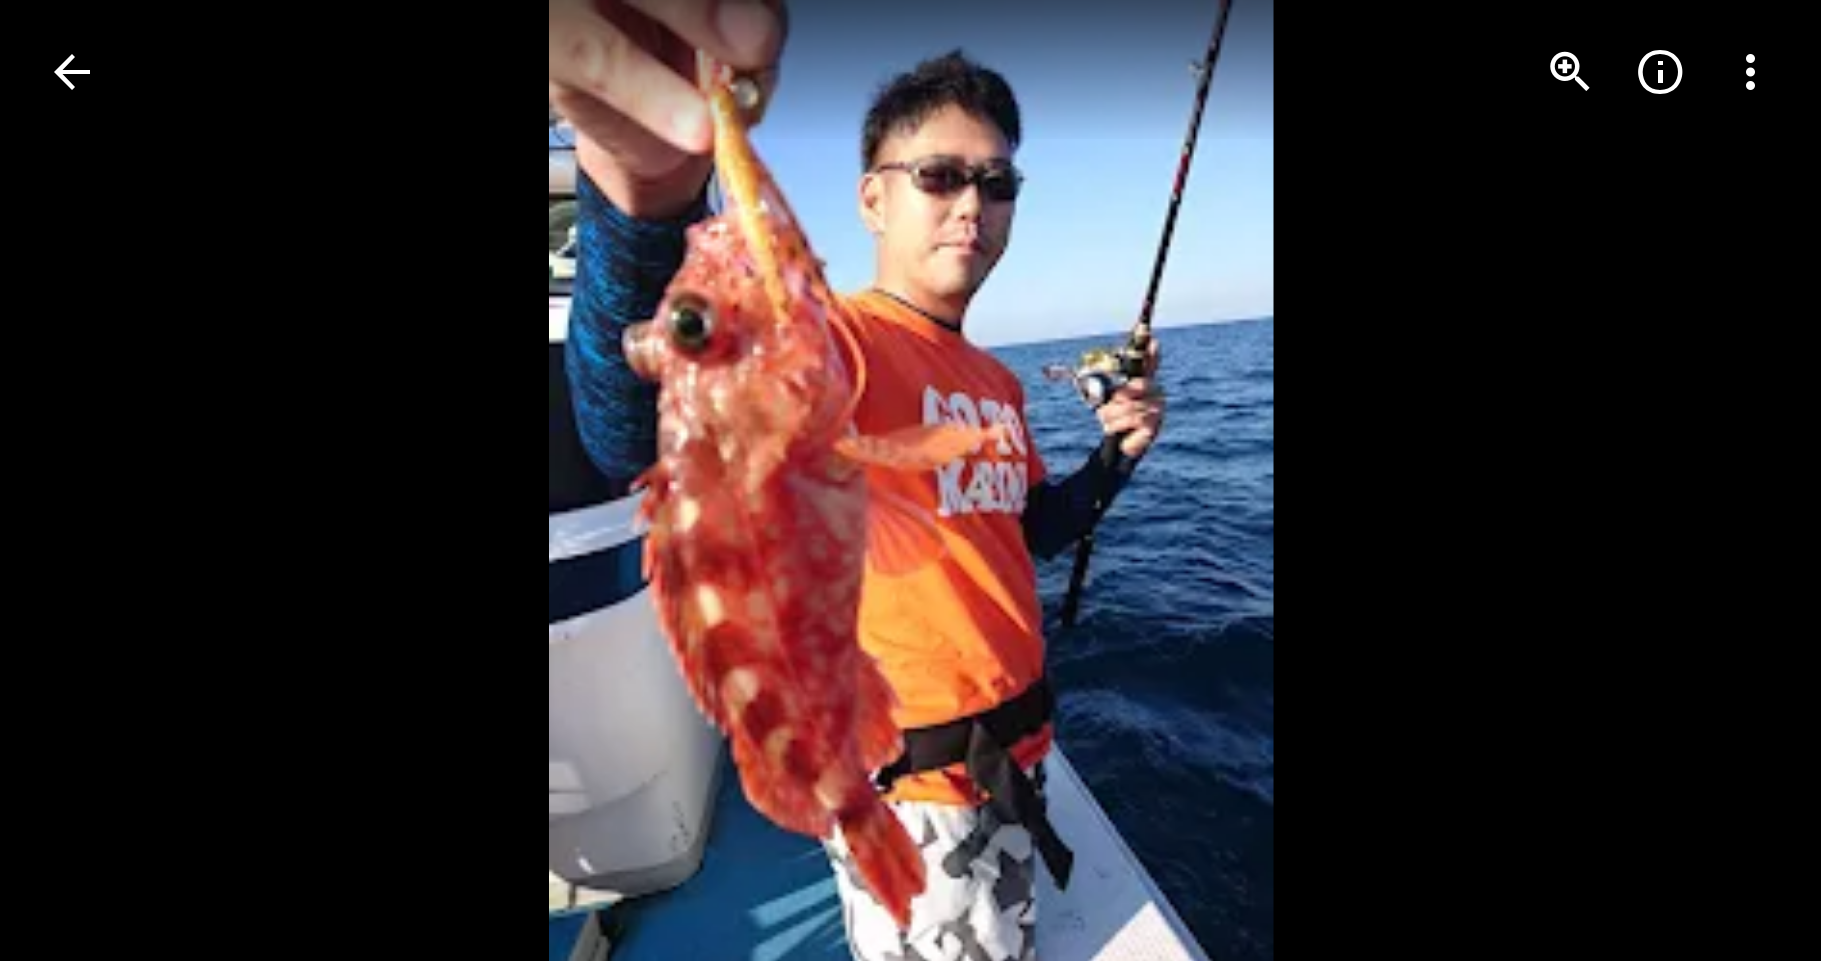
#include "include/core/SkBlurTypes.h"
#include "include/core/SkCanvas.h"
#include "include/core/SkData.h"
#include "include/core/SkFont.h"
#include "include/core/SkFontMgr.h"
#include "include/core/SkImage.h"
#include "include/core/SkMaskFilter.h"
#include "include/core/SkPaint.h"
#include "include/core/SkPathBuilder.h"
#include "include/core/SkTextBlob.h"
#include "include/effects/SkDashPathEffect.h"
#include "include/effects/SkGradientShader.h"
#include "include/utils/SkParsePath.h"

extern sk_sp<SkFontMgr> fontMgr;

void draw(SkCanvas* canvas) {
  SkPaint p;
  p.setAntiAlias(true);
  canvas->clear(SK_ColorBLACK);
  canvas->drawImageRect(SkImages::DeferredFromEncodedData(SkData::MakeFromFileName("images/3.png")), SkRect::MakeLTRB(549, 0, 1274, 961), SkSamplingOptions());
  {
    const SkColor colors[] = {SkColorSetARGB(153, 0, 0, 0), SkColorSetARGB(0, 0, 0, 0)};
    const float stops[] = {0, 1};
    const SkPoint ends[] = {{911, 0}, {911, 144}};
    p.setShader(SkGradientShader::MakeLinear(ends, colors, stops, 2, SkTileMode::kClamp));
    p.setAlpha(255);
  }
  canvas->drawRect(SkRect::MakeLTRB(549, 0, 1274, 139), p);
  p.setShader(nullptr);
  p.setColor(SK_ColorWHITE);
  canvas->drawPath(SkPathBuilder().moveTo(90, 70).lineTo(62.5f, 70).lineTo(75, 57).lineTo(72, 54).lineTo(54, 72).lineTo(72, 90).lineTo(75, 87).lineTo(62.5f, 74).lineTo(90, 74).close().detach(), p);
  canvas->drawImageRect(SkImages::DeferredFromEncodedData(SkData::MakeFromFileName("images/1.png")), SkRect::MakeLTRB(1550, 51, 1590, 91), SkSamplingOptions());
  canvas->drawPath(SkPathBuilder().moveTo(1658, 61).lineTo(1663, 61).lineTo(1663, 65).lineTo(1658, 65).close().moveTo(1658, 70).lineTo(1663, 70).lineTo(1663, 83).lineTo(1658, 83).close().moveTo(1660, 50).cubicTo(1631, 50, 1631, 94, 1660, 94).cubicTo(1690, 94, 1690, 50, 1660, 50).close().moveTo(1660, 90).cubicTo(1637, 90, 1637, 54, 1660, 54).cubicTo(1684, 54, 1684, 90, 1660, 90).close().detach(), p);
  canvas->drawImageRect(SkImages::DeferredFromEncodedData(SkData::MakeFromFileName("images/2.png")), SkRect::MakeLTRB(1746, 54, 1755, 90), SkSamplingOptions());
}
